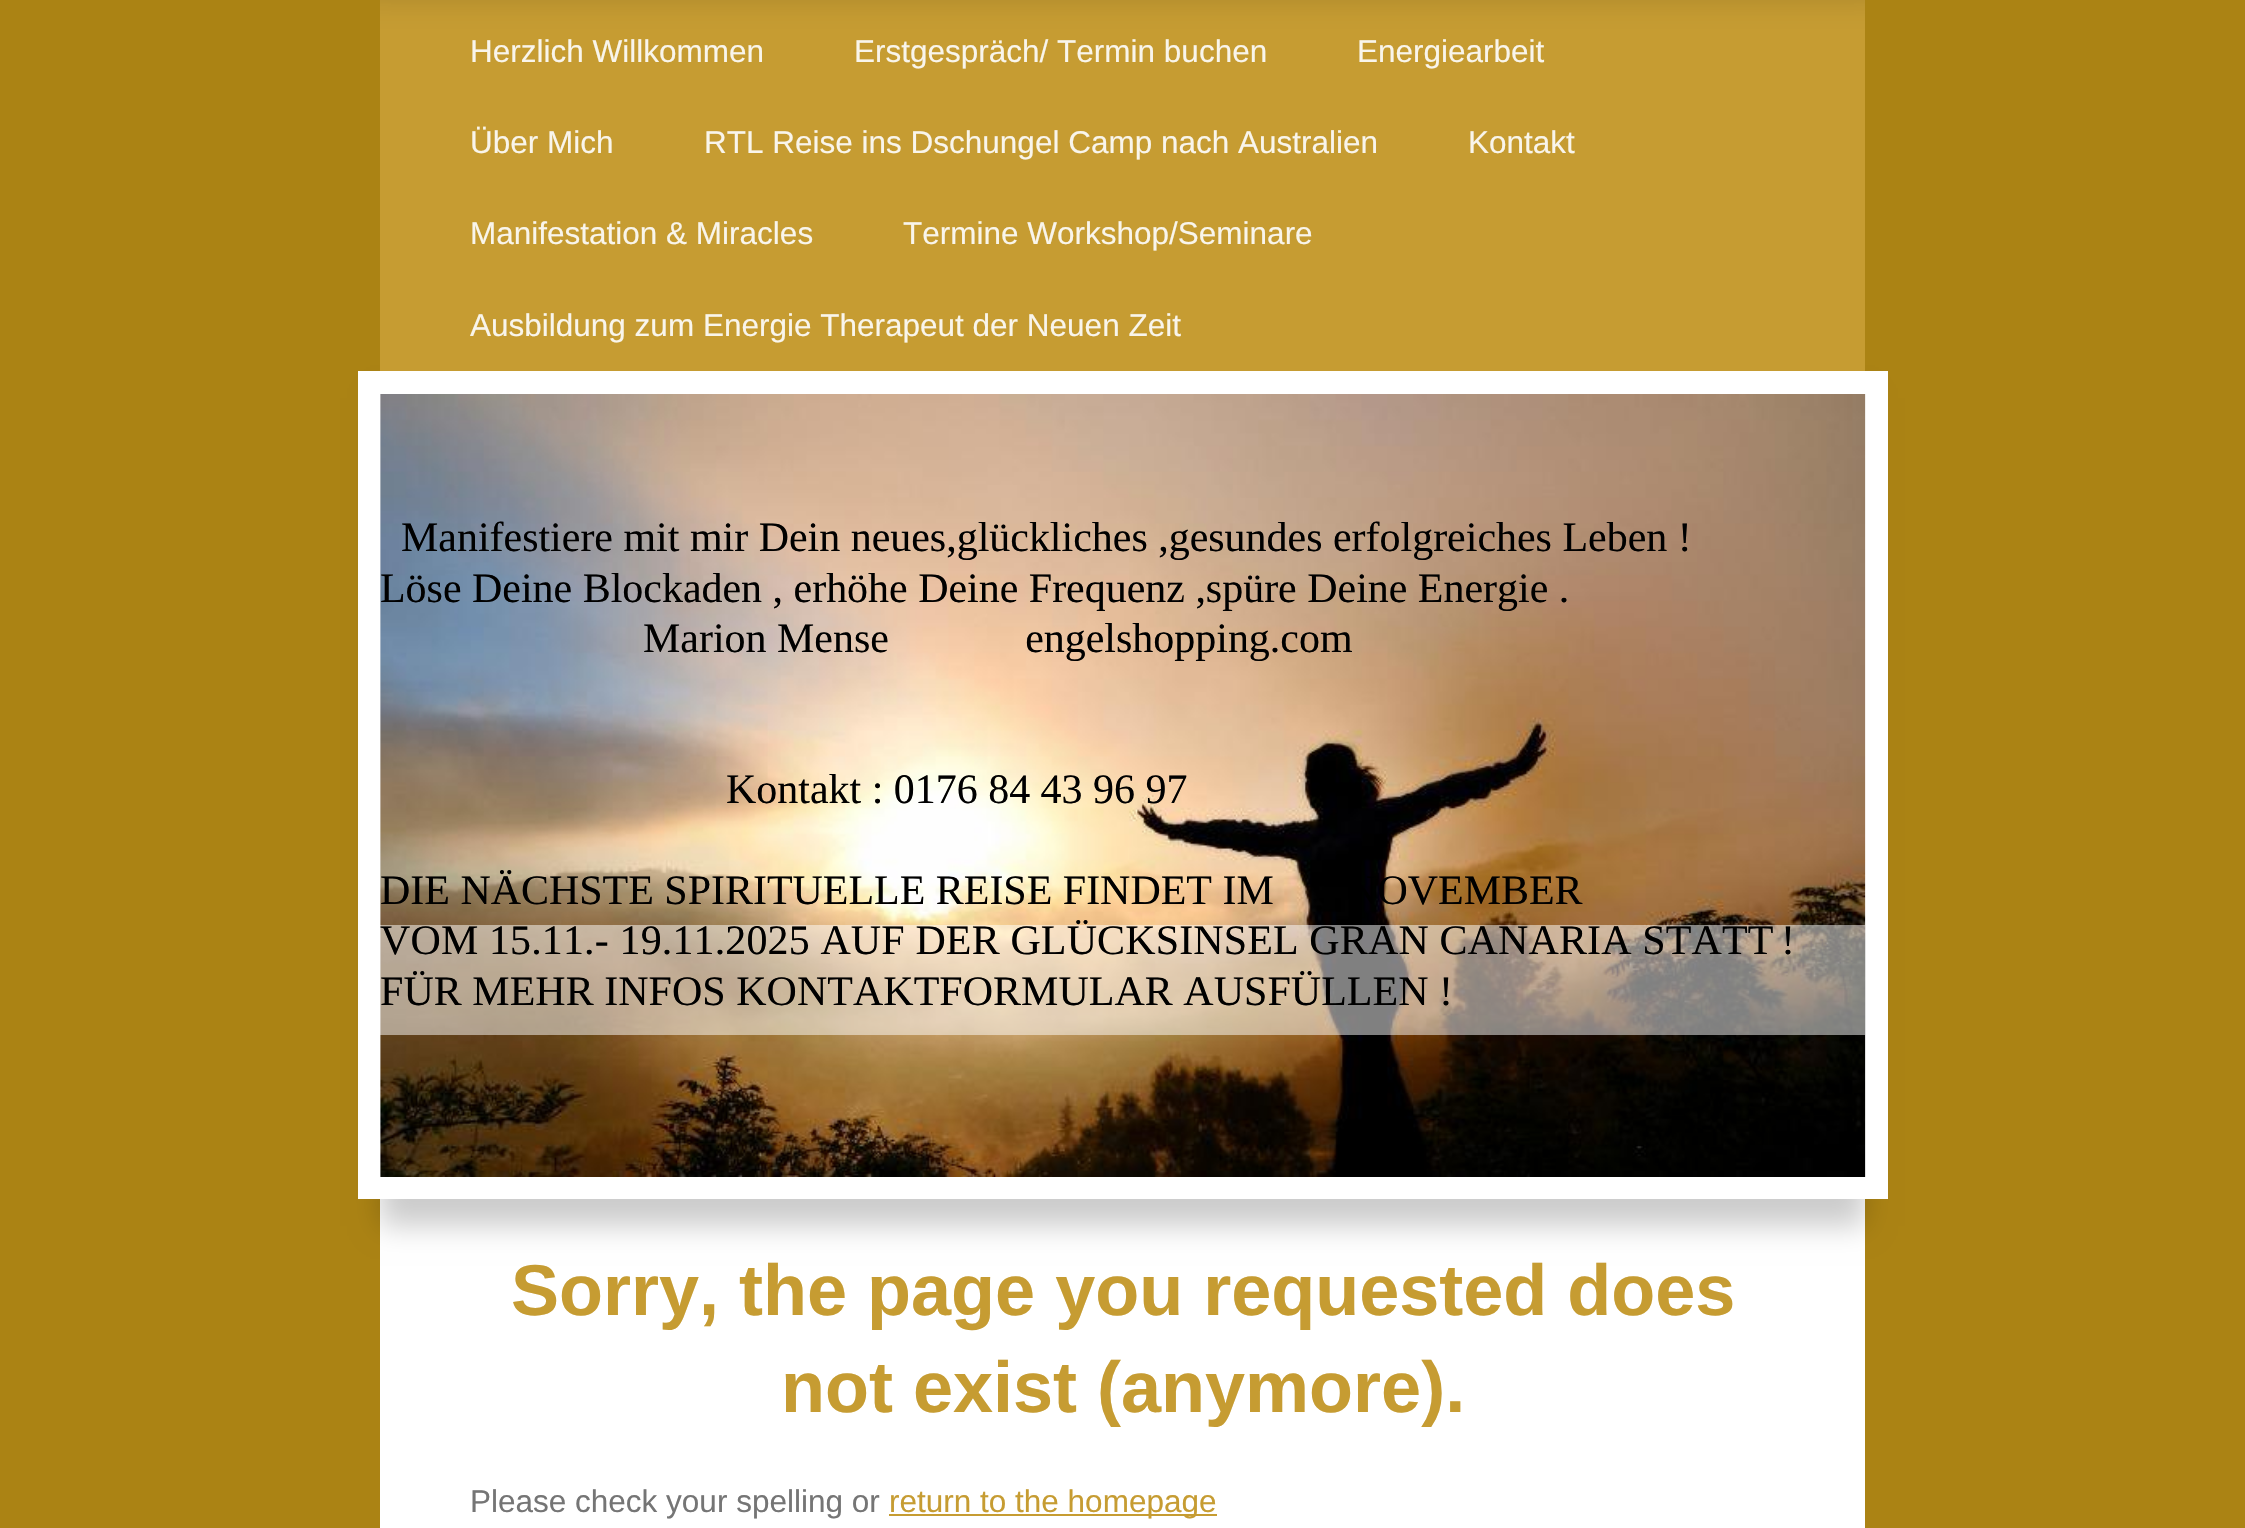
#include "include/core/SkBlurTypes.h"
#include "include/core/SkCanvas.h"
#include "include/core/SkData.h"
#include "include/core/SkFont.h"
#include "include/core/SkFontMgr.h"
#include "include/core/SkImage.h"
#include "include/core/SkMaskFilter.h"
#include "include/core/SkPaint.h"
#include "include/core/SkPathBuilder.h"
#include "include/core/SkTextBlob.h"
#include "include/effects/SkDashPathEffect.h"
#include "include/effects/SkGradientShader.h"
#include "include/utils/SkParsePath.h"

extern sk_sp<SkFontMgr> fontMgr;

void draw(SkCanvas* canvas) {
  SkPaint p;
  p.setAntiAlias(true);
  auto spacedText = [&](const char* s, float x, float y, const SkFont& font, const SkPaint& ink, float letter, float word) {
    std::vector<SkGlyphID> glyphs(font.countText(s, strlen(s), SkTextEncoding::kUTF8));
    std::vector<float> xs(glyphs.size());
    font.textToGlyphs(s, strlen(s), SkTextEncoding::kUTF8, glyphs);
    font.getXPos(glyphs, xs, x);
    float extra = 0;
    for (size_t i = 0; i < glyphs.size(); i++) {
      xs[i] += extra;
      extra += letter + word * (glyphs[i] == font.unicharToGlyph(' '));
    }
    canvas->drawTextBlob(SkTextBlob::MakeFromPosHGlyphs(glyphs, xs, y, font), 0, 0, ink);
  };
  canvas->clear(SkColorSetRGB(171, 131, 20));
  p.setColor(SK_ColorWHITE);
  canvas->drawRect(SkRect::MakeLTRB(380, 1199, 1865, 1528), p);
  p.setColor(SkColorSetARGB(51, 0, 0, 0));
  p.setMaskFilter(SkMaskFilter::MakeBlur(kNormal_SkBlurStyle, 13.5f));
  canvas->drawRect(SkRect::MakeLTRB(380, 398, 1865, 1226), p);
  p.setMaskFilter(nullptr);
  p.setColor(SkColorSetRGB(198, 156, 50));
  canvas->drawRect(SkRect::MakeLTRB(380, 0, 1865, 371), p);
  canvas->save();
  canvas->clipRect(SkRect::MakeLTRB(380, 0, 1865, 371));
  p.setColor(SkColorSetARGB(230, 0, 0, 0));
  p.setMaskFilter(SkMaskFilter::MakeBlur(kNormal_SkBlurStyle, 28));
  canvas->drawRect(SkRect::MakeLTRB(335, -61, 1910, -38), p);
  p.setMaskFilter(nullptr);
  canvas->restore();
  p.setStyle(SkPaint::kStroke_Style);
  p.setStrokeWidth(23);
  p.setColor(SK_ColorWHITE);
  canvas->drawRect(SkRect::MakeLTRB(369.5f, 382.5f, 1876.5f, 1187.5f), p);
  p.setStyle(SkPaint::kFill_Style);
  p.setColor(SkColorSetRGB(238, 238, 238));
  canvas->drawRect(SkRect::MakeLTRB(380, 394, 381, 1177), p);
  canvas->drawImageRect(SkImages::DeferredFromEncodedData(SkData::MakeFromFileName("images/2.png")), SkRect::MakeLTRB(1865, 394, 1866, 1177), SkSamplingOptions());
  canvas->drawImageRect(SkImages::DeferredFromEncodedData(SkData::MakeFromFileName("images/1.png")), SkRect::MakeLTRB(380, 394, 1866, 1177), SkSamplingOptions());
  p.setColor(SkColorSetARGB(128, 255, 255, 255));
  canvas->drawRect(SkRect::MakeLTRB(380, 925, 1865, 1035), p);
  p.setColor(SkColorSetRGB(198, 156, 50));
  canvas->drawRect(SkRect::MakeLTRB(889, 1514, 1217, 1516), p);
  SkFont font1(fontMgr->matchFamilyStyle("Liberation Sans", SkFontStyle::Normal()), 31.5f);
  font1.setSubpixel(true);
  p.setColor(SkColorSetRGB(249, 245, 235));
  canvas->drawString("Herzlich Willkommen", 470, 62, font1, p);
  canvas->drawString("Erstgespräch/ Termin buchen", 854, 62, font1, p);
  canvas->drawString("Energiearbeit", 1357, 62, font1, p);
  canvas->drawString("Über Mich", 470, 153, font1, p);
  canvas->drawString("RTL Reise ins Dschungel Camp nach Australien", 704, 153, font1, p);
  canvas->drawString("Kontakt", 1468, 153, font1, p);
  canvas->drawString("Manifestation & Miracles", 470, 244, font1, p);
  canvas->drawString("Termine Workshop/Seminare", 903, 244, font1, p);
  canvas->drawString("Ausbildung zum Energie Therapeut der Neuen Zeit", 470, 336, font1, p);
  SkFont font2(fontMgr->matchFamilyStyle("Liberation Serif", SkFontStyle::Normal()), 41.95f);
  font2.setSubpixel(true);
  p.setColor(SK_ColorBLACK);
  canvas->drawString("Manifestiere mit mir Dein neues,glückliches ,gesundes erfolgreiches Leben !", 401, 551, font2, p);
  canvas->drawString("Löse Deine Blockaden , erhöhe Deine Frequenz ,spüre Deine Energie .", 380, 602, font2, p);
  canvas->drawString("Marion Mense             engelshopping.com", 643, 652, font2, p);
  canvas->drawString("Kontakt : 0176 84 43 96 97", 726, 803, font2, p);
  canvas->drawString("DIE NÄCHSTE SPIRITUELLE REISE FINDET IM       NOVEMBER", 380, 904, font2, p);
  spacedText("VOM 15.11.- 19.11.2025 AUF DER GLÜCKSINSEL GRAN CANARIA STATT", 380, 954, font2, p, 0.15f, 0);
  spacedText("!", 1781, 954, font2, p, 0.15f, 0);
  spacedText("FÜR MEHR INFOS KONTAKTFORMULAR AUSFÜLLEN !", 380, 1005, font2, p, 0.05f, 0);
  SkFont font3(fontMgr->matchFamilyStyle("Liberation Sans", SkFontStyle::Bold()), 72);
  font3.setSubpixel(true);
  p.setColor(SkColorSetRGB(198, 156, 50));
  canvas->drawString("Sorry, the page you requested does", 511, 1315, font3, p);
  canvas->drawString("not exist (anymore).", 781, 1412, font3, p);
  p.setColor(SkColorSetRGB(117, 117, 117));
  canvas->drawString("Please check your spelling or", 470, 1512, font1, p);
  p.setColor(SkColorSetRGB(198, 156, 50));
  canvas->drawString("return to the homepage", 889, 1512, font1, p);
}
